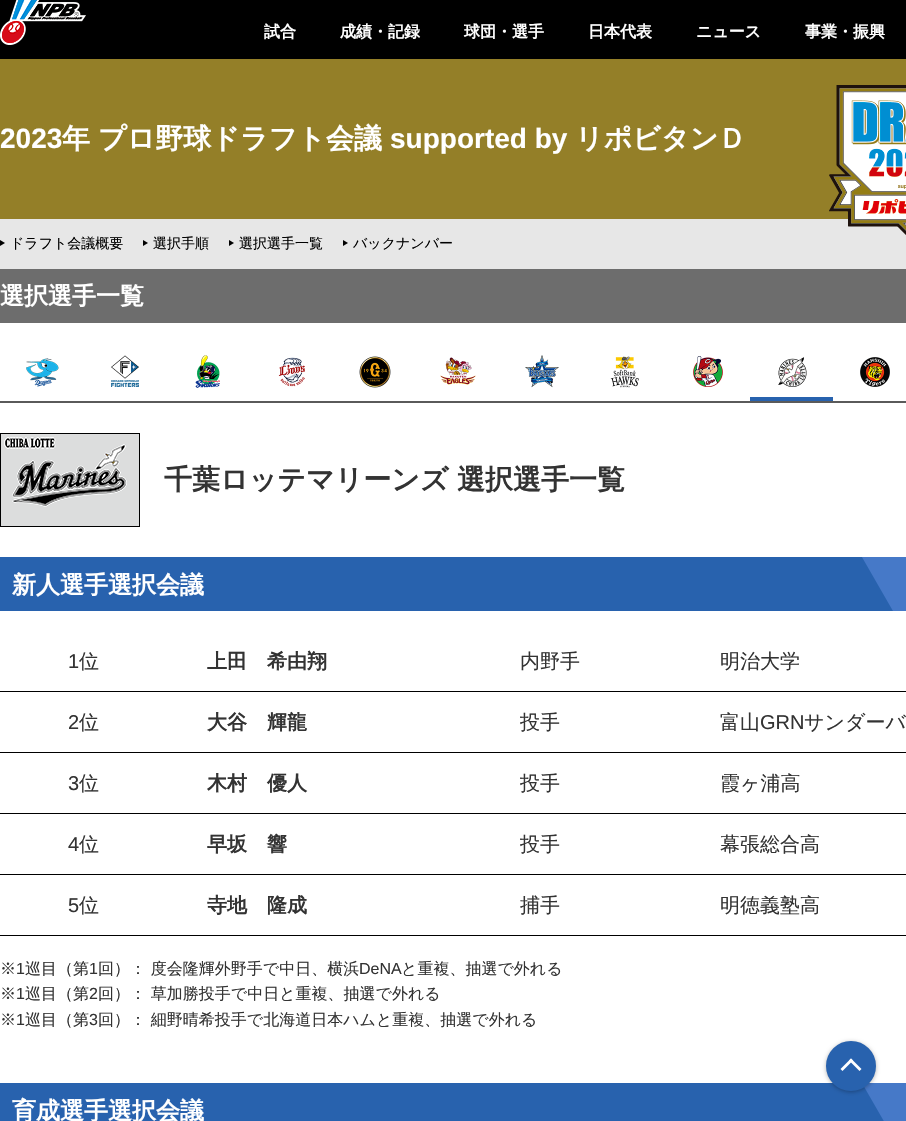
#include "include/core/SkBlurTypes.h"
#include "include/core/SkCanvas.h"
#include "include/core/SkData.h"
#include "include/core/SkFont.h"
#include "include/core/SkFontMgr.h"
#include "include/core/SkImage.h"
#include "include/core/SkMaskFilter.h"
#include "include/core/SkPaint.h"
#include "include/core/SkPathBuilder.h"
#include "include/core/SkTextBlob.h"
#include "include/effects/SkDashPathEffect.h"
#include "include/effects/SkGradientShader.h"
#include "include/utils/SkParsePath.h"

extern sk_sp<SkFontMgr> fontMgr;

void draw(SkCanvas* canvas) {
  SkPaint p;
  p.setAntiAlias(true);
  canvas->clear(SK_ColorWHITE);
  p.setColor(SK_ColorBLACK);
  canvas->drawRect(SkRect::MakeLTRB(0, 0, 906, 59), p);
  canvas->drawImageRect(SkImages::DeferredFromEncodedData(SkData::MakeFromFileName("images/1.png")), SkRect::MakeLTRB(0, 0, 86, 45), SkSamplingOptions());
  p.setColor(SkColorSetRGB(148, 127, 40));
  canvas->drawRect(SkRect::MakeLTRB(0, 59, 906, 219), p);
  p.setColor(SkColorSetRGB(231, 231, 231));
  canvas->drawRect(SkRect::MakeLTRB(0, 219, 906, 269), p);
  canvas->drawImageRect(SkImages::DeferredFromEncodedData(SkData::MakeFromFileName("images/2.png")), SkRect::MakeLTRB(829, 85, 906, 235), SkSamplingOptions());
  canvas->drawImageRect(SkImages::DeferredFromEncodedData(SkData::MakeFromFileName("images/3.png")), SkRect::MakeLTRB(0, 240, 5, 246), SkSamplingOptions());
  canvas->drawImageRect(SkImages::DeferredFromEncodedData(SkData::MakeFromFileName("images/3.png")), SkRect::MakeLTRB(143, 240, 148, 246), SkSamplingOptions());
  canvas->drawImageRect(SkImages::DeferredFromEncodedData(SkData::MakeFromFileName("images/3.png")), SkRect::MakeLTRB(229, 240, 234, 246), SkSamplingOptions());
  canvas->drawImageRect(SkImages::DeferredFromEncodedData(SkData::MakeFromFileName("images/3.png")), SkRect::MakeLTRB(343, 240, 348, 246), SkSamplingOptions());
  p.setColor(SkColorSetRGB(109, 109, 109));
  canvas->drawRect(SkRect::MakeLTRB(0, 269, 906, 323), p);
  p.setColor(SkColorSetRGB(90, 90, 90));
  canvas->drawRect(SkRect::MakeLTRB(0, 401, 906, 403), p);
  canvas->drawImageRect(SkImages::DeferredFromEncodedData(SkData::MakeFromFileName("images/4.png")), SkRect::MakeLTRB(26, 358, 59, 387), SkSamplingOptions());
  canvas->drawImageRect(SkImages::DeferredFromEncodedData(SkData::MakeFromFileName("images/5.png")), SkRect::MakeLTRB(111, 355, 139, 387), SkSamplingOptions());
  canvas->drawImageRect(SkImages::DeferredFromEncodedData(SkData::MakeFromFileName("images/6.png")), SkRect::MakeLTRB(195, 355, 220, 388), SkSamplingOptions());
  canvas->drawImageRect(SkImages::DeferredFromEncodedData(SkData::MakeFromFileName("images/7.png")), SkRect::MakeLTRB(278, 357, 305, 387), SkSamplingOptions());
  canvas->drawImageRect(SkImages::DeferredFromEncodedData(SkData::MakeFromFileName("images/8.png")), SkRect::MakeLTRB(359, 356, 391, 388), SkSamplingOptions());
  canvas->drawImageRect(SkImages::DeferredFromEncodedData(SkData::MakeFromFileName("images/9.png")), SkRect::MakeLTRB(440, 357, 476, 385), SkSamplingOptions());
  canvas->drawImageRect(SkImages::DeferredFromEncodedData(SkData::MakeFromFileName("images/10.png")), SkRect::MakeLTRB(525, 355, 559, 388), SkSamplingOptions());
  canvas->drawImageRect(SkImages::DeferredFromEncodedData(SkData::MakeFromFileName("images/11.png")), SkRect::MakeLTRB(610, 356, 639, 388), SkSamplingOptions());
  canvas->drawImageRect(SkImages::DeferredFromEncodedData(SkData::MakeFromFileName("images/12.png")), SkRect::MakeLTRB(693, 356, 723, 387), SkSamplingOptions());
  p.setColor(SkColorSetRGB(40, 98, 174));
  canvas->drawRect(SkRect::MakeLTRB(750, 397, 833, 401), p);
  canvas->drawImageRect(SkImages::DeferredFromEncodedData(SkData::MakeFromFileName("images/13.png")), SkRect::MakeLTRB(778, 357, 807, 387), SkSamplingOptions());
  canvas->drawImageRect(SkImages::DeferredFromEncodedData(SkData::MakeFromFileName("images/14.png")), SkRect::MakeLTRB(860, 357, 890, 387), SkSamplingOptions());
  canvas->drawImageRect(SkImages::DeferredFromEncodedData(SkData::MakeFromFileName("images/15.png")), SkRect::MakeLTRB(0, 433, 140, 527), SkSamplingOptions());
  canvas->drawRect(SkRect::MakeLTRB(0, 557, 862, 611), p);
  canvas->drawImageRect(SkImages::DeferredFromEncodedData(SkData::MakeFromFileName("images/16.png")), SkRect::MakeLTRB(862, 557, 906, 611), SkSamplingOptions());
  p.setColor(SK_ColorBLACK);
  canvas->drawRect(SkRect::MakeLTRB(0, 691, 906, 692), p);
  canvas->drawRect(SkRect::MakeLTRB(0, 752, 906, 753), p);
  canvas->drawRect(SkRect::MakeLTRB(0, 813, 906, 814), p);
  canvas->drawRect(SkRect::MakeLTRB(0, 874, 906, 875), p);
  canvas->drawRect(SkRect::MakeLTRB(0, 935, 906, 936), p);
  p.setColor(SkColorSetRGB(40, 98, 174));
  canvas->drawRect(SkRect::MakeLTRB(0, 1083, 862, 1121), p);
  canvas->drawImageRect(SkImages::DeferredFromEncodedData(SkData::MakeFromFileName("images/17.png")), SkRect::MakeLTRB(862, 1083, 906, 1121), SkSamplingOptions());
  p.setColor(SkColorSetARGB(77, 0, 0, 0));
  p.setMaskFilter(SkMaskFilter::MakeBlur(kNormal_SkBlurStyle, 2));
  canvas->drawRoundRect(SkRect::MakeLTRB(826, 1042, 876, 1092), 25, 25, p);
  p.setMaskFilter(nullptr);
  p.setColor(SkColorSetRGB(40, 98, 174));
  canvas->drawCircle(851, 1066, 24, p);
  p.setStyle(SkPaint::kStroke_Style);
  p.setStrokeWidth(2);
  canvas->drawCircle(851, 1066, 24, p);
  p.setStyle(SkPaint::kFill_Style);
  p.setColor(SK_ColorWHITE);
  canvas->drawPath(SkPathBuilder().moveTo(840.5f, 1069).lineTo(851, 1058.5f).lineTo(853, 1060.5f).lineTo(842.5f, 1071).close().detach(), p);
  canvas->drawPath(SkPathBuilder().moveTo(849, 1060.5f).lineTo(851, 1058.5f).lineTo(861.5f, 1069).lineTo(859.5f, 1071).close().detach(), p);
  SkFont font1(fontMgr->matchFamilyStyle("WenQuanYi Zen Hei", SkFontStyle::Bold()), 16);
  font1.setSubpixel(true);
  canvas->drawString("試合", 264, 37, font1, p);
  canvas->drawString("成績・記録", 340, 37, font1, p);
  canvas->drawString("球団・選手", 464, 37, font1, p);
  canvas->drawString("日本代表", 588, 37, font1, p);
  canvas->drawString("ニュース", 696, 37, font1, p);
  canvas->drawString("事業・振興", 805, 37, font1, p);
  SkFont font2(fontMgr->matchFamilyStyle("Liberation Sans", SkFontStyle::Bold()), 28);
  font2.setSubpixel(true);
  canvas->drawString("2023", 0, 148, font2, p);
  SkFont font3(fontMgr->matchFamilyStyle("WenQuanYi Zen Hei", SkFontStyle::Bold()), 28);
  font3.setSubpixel(true);
  canvas->drawString("年", 62, 148, font3, p);
  canvas->drawString("プロ野球ドラフト会議", 98, 148, font3, p);
  canvas->drawString("supported by", 390, 148, font2, p);
  canvas->drawString("リポビタンＤ", 575, 148, font3, p);
  SkFont font4(fontMgr->matchFamilyStyle("WenQuanYi Zen Hei", SkFontStyle(500, SkFontStyle::kNormal_Width, SkFontStyle::kUpright_Slant)), 14);
  font4.setSubpixel(true);
  p.setColor(SK_ColorBLACK);
  canvas->drawString("ドラフト会議概要", 10, 248, font4, p);
  canvas->drawString("選択手順", 153, 248, font4, p);
  canvas->drawString("選択選手一覧", 239, 248, font4, p);
  canvas->drawString("バックナンバー", 353, 248, font4, p);
  SkFont font5(fontMgr->matchFamilyStyle("WenQuanYi Zen Hei", SkFontStyle::Bold()), 24);
  font5.setSubpixel(true);
  p.setColor(SK_ColorWHITE);
  canvas->drawString("選択選手一覧", 0, 304, font5, p);
  p.setColor(SkColorSetRGB(51, 51, 51));
  canvas->drawString("千葉ロッテマリーンズ", 164, 489, font3, p);
  canvas->drawString("選択選手一覧", 457, 489, font3, p);
  p.setColor(SK_ColorWHITE);
  canvas->drawString("新人選手選択会議", 12, 593, font5, p);
  SkFont font6(fontMgr->matchFamilyStyle("Liberation Sans", SkFontStyle::Normal()), 20);
  font6.setSubpixel(true);
  p.setColor(SkColorSetRGB(51, 51, 51));
  canvas->drawString("1", 68, 668, font6, p);
  SkFont font7(fontMgr->matchFamilyStyle("WenQuanYi Zen Hei", SkFontStyle(500, SkFontStyle::kNormal_Width, SkFontStyle::kUpright_Slant)), 20);
  font7.setSubpixel(true);
  canvas->drawString("位", 79, 668, font7, p);
  SkFont font8(fontMgr->matchFamilyStyle("WenQuanYi Zen Hei", SkFontStyle::Bold()), 20);
  font8.setSubpixel(true);
  canvas->drawString("上田　希由翔", 207, 668, font8, p);
  canvas->drawString("内野手", 520, 668, font7, p);
  canvas->drawString("明治大学", 720, 668, font7, p);
  canvas->drawString("2", 68, 729, font6, p);
  canvas->drawString("位", 79, 729, font7, p);
  canvas->drawString("大谷　輝龍", 207, 729, font8, p);
  canvas->drawString("投手", 520, 729, font7, p);
  canvas->drawString("富山", 720, 729, font7, p);
  canvas->drawString("GRN", 760, 729, font6, p);
  canvas->drawString("サンダーバ", 804, 729, font7, p);
  canvas->drawString("3", 68, 790, font6, p);
  canvas->drawString("位", 79, 790, font7, p);
  canvas->drawString("木村　優人", 207, 790, font8, p);
  canvas->drawString("投手", 520, 790, font7, p);
  canvas->drawString("霞ヶ浦高", 720, 790, font7, p);
  canvas->drawString("4", 68, 851, font6, p);
  canvas->drawString("位", 79, 851, font7, p);
  canvas->drawString("早坂　響", 207, 851, font8, p);
  canvas->drawString("投手", 520, 851, font7, p);
  canvas->drawString("幕張総合高", 720, 851, font7, p);
  canvas->drawString("5", 68, 912, font6, p);
  canvas->drawString("位", 79, 912, font7, p);
  canvas->drawString("寺地　隆成", 207, 912, font8, p);
  canvas->drawString("捕手", 520, 912, font7, p);
  canvas->drawString("明徳義塾高", 720, 912, font7, p);
  SkFont font9(fontMgr->matchFamilyStyle("WenQuanYi Zen Hei", SkFontStyle(500, SkFontStyle::kNormal_Width, SkFontStyle::kUpright_Slant)), 16);
  font9.setSubpixel(true);
  canvas->drawString("※", 0, 974, font9, p);
  SkFont font10(fontMgr->matchFamilyStyle("Liberation Sans", SkFontStyle::Normal()), 16);
  font10.setSubpixel(true);
  canvas->drawString("1", 16, 974, font10, p);
  canvas->drawString("巡目（第", 25, 974, font9, p);
  canvas->drawString("1", 89, 974, font10, p);
  canvas->drawString("回）： 度会隆輝外野手で中日、横浜", 98, 974, font9, p);
  canvas->drawString("DeNA", 359, 974, font10, p);
  canvas->drawString("と重複、抽選で外れる", 401, 974, font9, p);
  canvas->drawString("※", 0, 999, font9, p);
  canvas->drawString("1", 16, 999, font10, p);
  canvas->drawString("巡目（第", 25, 999, font9, p);
  canvas->drawString("2", 89, 999, font10, p);
  canvas->drawString("回）： 草加勝投手で中日と重複、抽選で外れる", 98, 999, font9, p);
  canvas->drawString("※", 0, 1025, font9, p);
  canvas->drawString("1", 16, 1025, font10, p);
  canvas->drawString("巡目（第", 25, 1025, font9, p);
  canvas->drawString("3", 89, 1025, font10, p);
  canvas->drawString("回）： 細野晴希投手で北海道日本ハムと重複、抽選で外れる", 98, 1025, font9, p);
  p.setColor(SK_ColorWHITE);
  canvas->drawString("育成選手選択会議", 12, 1119, font5, p);
}
